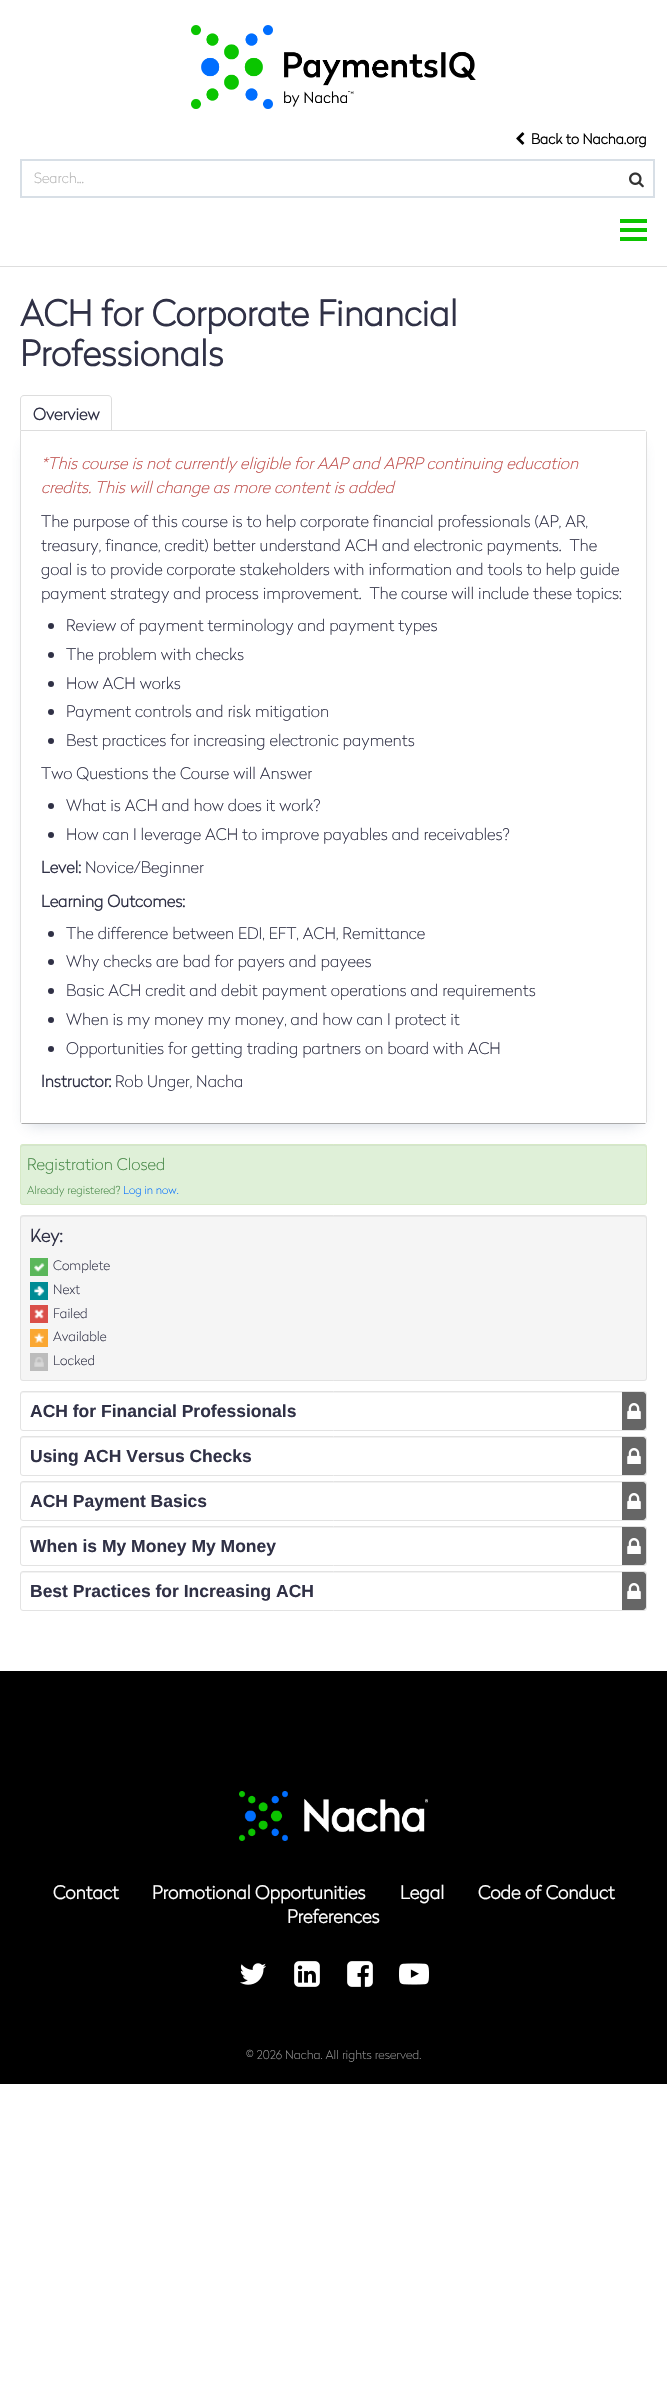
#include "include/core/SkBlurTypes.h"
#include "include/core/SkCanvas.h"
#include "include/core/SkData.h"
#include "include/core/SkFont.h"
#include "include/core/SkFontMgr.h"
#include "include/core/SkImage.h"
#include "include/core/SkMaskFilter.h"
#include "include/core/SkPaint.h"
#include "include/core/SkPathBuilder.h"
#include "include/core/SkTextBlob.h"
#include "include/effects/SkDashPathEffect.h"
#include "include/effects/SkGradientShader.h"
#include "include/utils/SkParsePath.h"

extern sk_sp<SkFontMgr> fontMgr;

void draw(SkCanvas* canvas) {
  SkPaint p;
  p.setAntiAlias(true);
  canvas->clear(SK_ColorWHITE);
  p.setColor(SkColorSetRGB(222, 222, 222));
  canvas->drawRect(SkRect::MakeLTRB(0, 266, 667, 267), p);
  canvas->drawImageRect(SkImages::DeferredFromEncodedData(SkData::MakeFromFileName("images/1.png")), SkRect::MakeLTRB(191, 25, 273, 109), SkSamplingOptions());
  canvas->drawImageRect(SkImages::DeferredFromEncodedData(SkData::MakeFromFileName("images/2.png")), SkRect::MakeLTRB(284, 52, 476, 107), SkSamplingOptions());
  canvas->drawImageRect(SkImages::DeferredFromEncodedData(SkData::MakeFromFileName("images/3.png")), SkRect::MakeLTRB(516, 132, 525, 145), SkSamplingOptions());
  p.setStyle(SkPaint::kStroke_Style);
  p.setStrokeWidth(2);
  p.setColor(SkColorSetRGB(216, 223, 230));
  canvas->drawRect(SkRect::MakeLTRB(21, 160, 654, 197), p);
  canvas->drawImageRect(SkImages::DeferredFromEncodedData(SkData::MakeFromFileName("images/4.png")), SkRect::MakeLTRB(629, 172, 644, 188), SkSamplingOptions());
  p.setStyle(SkPaint::kFill_Style);
  p.setColor(SkColorSetRGB(12, 196, 0));
  canvas->drawRect(SkRect::MakeLTRB(620, 219, 647, 223), p);
  canvas->drawRect(SkRect::MakeLTRB(620, 228, 647, 232), p);
  canvas->drawRect(SkRect::MakeLTRB(620, 237, 647, 241), p);
  p.setColor(SkColorSetRGB(221, 221, 221));
  canvas->drawPath(SkPathBuilder(SkPathFillType::kEvenOdd).moveTo(24, 395).lineTo(108, 395).cubicTo(110, 395, 112, 397, 112, 399).lineTo(112, 432).lineTo(20, 432).lineTo(20, 399).cubicTo(20, 397, 22, 395, 24, 395).close().moveTo(24, 396).lineTo(108, 396).cubicTo(110, 396, 111, 397, 111, 399).lineTo(111, 432).lineTo(21, 432).lineTo(21, 399).cubicTo(21, 397, 22, 396, 24, 396).close().detach(), p);
  p.setColor(SkColorSetRGB(223, 240, 216));
  canvas->drawRoundRect(SkRect::MakeLTRB(20, 1144, 647, 1205), 3, 3, p);
  p.setColor(SkColorSetRGB(212, 228, 205));
  canvas->drawPath(SkPathBuilder().moveTo(23, 1146).lineTo(644, 1146).cubicTo(645, 1146, 646, 1147, 646, 1148).cubicTo(646, 1147, 646, 1145, 644, 1145).lineTo(23, 1145).cubicTo(21, 1145, 21, 1147, 21, 1148).cubicTo(21, 1147, 22, 1146, 23, 1146).close().detach(), p);
  p.setStyle(SkPaint::kStroke_Style);
  p.setStrokeWidth(1);
  p.setColor(SkColorSetRGB(214, 233, 198));
  canvas->drawRoundRect(SkRect::MakeLTRB(20.5f, 1144.5f, 646.5f, 1204.5f), 2.5f, 2.5f, p);
  p.setStyle(SkPaint::kFill_Style);
  p.setColor(SkColorSetARGB(77, 100, 120, 150));
  p.setMaskFilter(SkMaskFilter::MakeBlur(kNormal_SkBlurStyle, 7.5f));
  canvas->drawRect(SkRect::MakeLTRB(28, 446, 639, 1124), p);
  p.setMaskFilter(nullptr);
  p.setColor(SK_ColorWHITE);
  canvas->drawPath(SkPathBuilder().moveTo(20, 430).lineTo(645, 430).cubicTo(646, 430, 647, 431, 647, 432).lineTo(647, 1122).cubicTo(647, 1123, 646, 1124, 645, 1124).lineTo(22, 1124).cubicTo(21, 1124, 20, 1123, 20, 1122).close().detach(), p);
  p.setColor(SkColorSetRGB(221, 221, 221));
  canvas->drawPath(SkPathBuilder().moveTo(20, 430).lineTo(21, 431).lineTo(646, 431).lineTo(645, 430).close().detach(), p);
  canvas->drawPath(SkPathBuilder().moveTo(647, 1122).lineTo(647, 432).lineTo(646, 431).lineTo(646, 1123).close().detach(), p);
  p.setColor(SkColorSetRGB(170, 170, 170));
  canvas->drawPath(SkPathBuilder().moveTo(22, 1124).lineTo(645, 1124).lineTo(646, 1123).lineTo(21, 1123).close().detach(), p);
  p.setColor(SkColorSetRGB(221, 221, 221));
  canvas->drawPath(SkPathBuilder().moveTo(21, 431).lineTo(20, 430).lineTo(20, 1122).lineTo(21, 1123).lineTo(21, 1122).close().detach(), p);
  p.setColor(SkColorSetRGB(48, 49, 70));
  canvas->drawCircle(51, 626, 3, p);
  canvas->drawCircle(51, 655, 3, p);
  canvas->drawCircle(51, 684, 3, p);
  canvas->drawCircle(51, 712, 3, p);
  canvas->drawCircle(51, 741, 3, p);
  canvas->drawCircle(51, 806, 3, p);
  canvas->drawCircle(51, 835, 3, p);
  canvas->drawCircle(51, 934, 3, p);
  canvas->drawCircle(51, 962, 3, p);
  canvas->drawCircle(51, 991, 3, p);
  canvas->drawCircle(51, 1020, 3, p);
  canvas->drawCircle(51, 1049, 3, p);
  p.setColor(SkColorSetRGB(245, 245, 245));
  canvas->drawRoundRect(SkRect::MakeLTRB(20, 1215, 647, 1381), 3, 3, p);
  p.setColor(SkColorSetRGB(233, 233, 233));
  canvas->drawPath(SkPathBuilder().moveTo(23, 1217).lineTo(644, 1217).cubicTo(645, 1217, 646, 1218, 646, 1219).cubicTo(646, 1218, 646, 1216, 644, 1216).lineTo(23, 1216).cubicTo(21, 1216, 21, 1218, 21, 1219).cubicTo(21, 1218, 22, 1217, 23, 1217).close().detach(), p);
  p.setStyle(SkPaint::kStroke_Style);
  p.setColor(SkColorSetRGB(227, 227, 227));
  canvas->drawRoundRect(SkRect::MakeLTRB(20.5f, 1215.5f, 646.5f, 1380.5f), 2.5f, 2.5f, p);
  p.setStyle(SkPaint::kFill_Style);
  p.setColor(SkColorSetRGB(91, 183, 91));
  canvas->drawRect(SkRect::MakeLTRB(30, 1258, 48, 1276), p);
  canvas->drawImageRect(SkImages::DeferredFromEncodedData(SkData::MakeFromFileName("images/5.png")), SkRect::MakeLTRB(34, 1263, 45, 1272), SkSamplingOptions());
  p.setColor(SkColorSetRGB(0, 140, 149));
  canvas->drawRect(SkRect::MakeLTRB(30, 1282, 48, 1300), p);
  canvas->drawImageRect(SkImages::DeferredFromEncodedData(SkData::MakeFromFileName("images/6.png")), SkRect::MakeLTRB(34, 1286, 45, 1296), SkSamplingOptions());
  p.setColor(SkColorSetRGB(218, 79, 73));
  canvas->drawRect(SkRect::MakeLTRB(30, 1305, 48, 1323), p);
  canvas->drawImageRect(SkImages::DeferredFromEncodedData(SkData::MakeFromFileName("images/7.png")), SkRect::MakeLTRB(34, 1309, 44, 1319), SkSamplingOptions());
  p.setColor(SkColorSetRGB(250, 167, 50));
  canvas->drawRect(SkRect::MakeLTRB(30, 1329, 48, 1347), p);
  canvas->drawImageRect(SkImages::DeferredFromEncodedData(SkData::MakeFromFileName("images/8.png")), SkRect::MakeLTRB(34, 1333, 44, 1343), SkSamplingOptions());
  p.setColor(SkColorSetRGB(188, 188, 188));
  canvas->drawRect(SkRect::MakeLTRB(30, 1353, 48, 1371), p);
  canvas->drawImageRect(SkImages::DeferredFromEncodedData(SkData::MakeFromFileName("images/9.png")), SkRect::MakeLTRB(34, 1357, 44, 1367), SkSamplingOptions());
  p.setColor(SkColorSetRGB(242, 242, 242));
  canvas->drawPath(SkPathBuilder().moveTo(23, 1393).lineTo(644, 1393).cubicTo(645, 1393, 646, 1394, 646, 1395).cubicTo(646, 1394, 646, 1392, 644, 1392).lineTo(23, 1392).cubicTo(21, 1392, 21, 1394, 21, 1395).cubicTo(21, 1394, 22, 1393, 23, 1393).close().detach(), p);
  p.setStyle(SkPaint::kStroke_Style);
  p.setColor(SkColorSetRGB(227, 227, 227));
  canvas->drawRoundRect(SkRect::MakeLTRB(20.5f, 1391.5f, 646.5f, 1430.5f), 2.5f, 2.5f, p);
  canvas->save();
  canvas->clipPath(SkPathBuilder().moveTo(23, 1392).lineTo(644, 1392).cubicTo(645, 1392, 646, 1393, 646, 1394).lineTo(646, 1428).cubicTo(646, 1429, 645, 1430, 644, 1430).lineTo(23, 1430).cubicTo(22, 1430, 21, 1429, 21, 1428).lineTo(21, 1394).cubicTo(21, 1393, 22, 1392, 23, 1392).close().detach(), true);
  p.setStyle(SkPaint::kFill_Style);
  p.setColor(SkColorSetRGB(102, 102, 102));
  canvas->drawPath(SkPathBuilder().moveTo(622, 1392).lineTo(643, 1392).cubicTo(644.5f, 1392, 646, 1393.5f, 646, 1395).lineTo(646, 1427).cubicTo(646, 1428.5f, 644.5f, 1430, 643, 1430).lineTo(622, 1430).close().detach(), p);
  canvas->restore();
  canvas->drawImageRect(SkImages::DeferredFromEncodedData(SkData::MakeFromFileName("images/10.png")), SkRect::MakeLTRB(627, 1403, 641, 1419), SkSamplingOptions());
  p.setColor(SkColorSetRGB(242, 242, 242));
  canvas->drawPath(SkPathBuilder().moveTo(23, 1438).lineTo(644, 1438).cubicTo(645, 1438, 646, 1439, 646, 1440).cubicTo(646, 1439, 646, 1437, 644, 1437).lineTo(23, 1437).cubicTo(21, 1437, 21, 1439, 21, 1440).cubicTo(21, 1439, 22, 1438, 23, 1438).close().detach(), p);
  p.setStyle(SkPaint::kStroke_Style);
  p.setColor(SkColorSetRGB(227, 227, 227));
  canvas->drawRoundRect(SkRect::MakeLTRB(20.5f, 1436.5f, 646.5f, 1475.5f), 2.5f, 2.5f, p);
  canvas->save();
  canvas->clipPath(SkPathBuilder().moveTo(23, 1437).lineTo(644, 1437).cubicTo(645, 1437, 646, 1438, 646, 1439).lineTo(646, 1473).cubicTo(646, 1474, 645, 1475, 644, 1475).lineTo(23, 1475).cubicTo(22, 1475, 21, 1474, 21, 1473).lineTo(21, 1439).cubicTo(21, 1438, 22, 1437, 23, 1437).close().detach(), true);
  p.setStyle(SkPaint::kFill_Style);
  p.setColor(SkColorSetRGB(102, 102, 102));
  canvas->drawPath(SkPathBuilder().moveTo(622, 1437).lineTo(643, 1437).cubicTo(644.5f, 1437, 646, 1438.5f, 646, 1440).lineTo(646, 1472).cubicTo(646, 1473.5f, 644.5f, 1475, 643, 1475).lineTo(622, 1475).close().detach(), p);
  canvas->restore();
  canvas->drawImageRect(SkImages::DeferredFromEncodedData(SkData::MakeFromFileName("images/10.png")), SkRect::MakeLTRB(627, 1448, 641, 1464), SkSamplingOptions());
  p.setColor(SkColorSetRGB(242, 242, 242));
  canvas->drawPath(SkPathBuilder().moveTo(23, 1483).lineTo(644, 1483).cubicTo(645, 1483, 646, 1484, 646, 1485).cubicTo(646, 1484, 646, 1482, 644, 1482).lineTo(23, 1482).cubicTo(21, 1482, 21, 1484, 21, 1485).cubicTo(21, 1484, 22, 1483, 23, 1483).close().detach(), p);
  p.setStyle(SkPaint::kStroke_Style);
  p.setColor(SkColorSetRGB(227, 227, 227));
  canvas->drawRoundRect(SkRect::MakeLTRB(20.5f, 1481.5f, 646.5f, 1520.5f), 2.5f, 2.5f, p);
  canvas->save();
  canvas->clipPath(SkPathBuilder().moveTo(23, 1482).lineTo(644, 1482).cubicTo(645, 1482, 646, 1483, 646, 1484).lineTo(646, 1518).cubicTo(646, 1519, 645, 1520, 644, 1520).lineTo(23, 1520).cubicTo(22, 1520, 21, 1519, 21, 1518).lineTo(21, 1484).cubicTo(21, 1483, 22, 1482, 23, 1482).close().detach(), true);
  p.setStyle(SkPaint::kFill_Style);
  p.setColor(SkColorSetRGB(102, 102, 102));
  canvas->drawPath(SkPathBuilder().moveTo(622, 1482).lineTo(643, 1482).cubicTo(644.5f, 1482, 646, 1483.5f, 646, 1485).lineTo(646, 1517).cubicTo(646, 1518.5f, 644.5f, 1520, 643, 1520).lineTo(622, 1520).close().detach(), p);
  canvas->restore();
  canvas->drawImageRect(SkImages::DeferredFromEncodedData(SkData::MakeFromFileName("images/10.png")), SkRect::MakeLTRB(627, 1493, 641, 1509), SkSamplingOptions());
  p.setColor(SkColorSetRGB(242, 242, 242));
  canvas->drawPath(SkPathBuilder().moveTo(23, 1528).lineTo(644, 1528).cubicTo(645, 1528, 646, 1529, 646, 1530).cubicTo(646, 1529, 646, 1527, 644, 1527).lineTo(23, 1527).cubicTo(21, 1527, 21, 1529, 21, 1530).cubicTo(21, 1529, 22, 1528, 23, 1528).close().detach(), p);
  p.setStyle(SkPaint::kStroke_Style);
  p.setColor(SkColorSetRGB(227, 227, 227));
  canvas->drawRoundRect(SkRect::MakeLTRB(20.5f, 1526.5f, 646.5f, 1565.5f), 2.5f, 2.5f, p);
  canvas->save();
  canvas->clipPath(SkPathBuilder().moveTo(23, 1527).lineTo(644, 1527).cubicTo(645, 1527, 646, 1528, 646, 1529).lineTo(646, 1563).cubicTo(646, 1564, 645, 1565, 644, 1565).lineTo(23, 1565).cubicTo(22, 1565, 21, 1564, 21, 1563).lineTo(21, 1529).cubicTo(21, 1528, 22, 1527, 23, 1527).close().detach(), true);
  p.setStyle(SkPaint::kFill_Style);
  p.setColor(SkColorSetRGB(102, 102, 102));
  canvas->drawPath(SkPathBuilder().moveTo(622, 1527).lineTo(643, 1527).cubicTo(644.5f, 1527, 646, 1528.5f, 646, 1530).lineTo(646, 1562).cubicTo(646, 1563.5f, 644.5f, 1565, 643, 1565).lineTo(622, 1565).close().detach(), p);
  canvas->restore();
  canvas->drawImageRect(SkImages::DeferredFromEncodedData(SkData::MakeFromFileName("images/10.png")), SkRect::MakeLTRB(627, 1538, 641, 1554), SkSamplingOptions());
  p.setColor(SkColorSetRGB(242, 242, 242));
  canvas->drawPath(SkPathBuilder().moveTo(23, 1573).lineTo(644, 1573).cubicTo(645, 1573, 646, 1574, 646, 1575).cubicTo(646, 1574, 646, 1572, 644, 1572).lineTo(23, 1572).cubicTo(21, 1572, 21, 1574, 21, 1575).cubicTo(21, 1574, 22, 1573, 23, 1573).close().detach(), p);
  p.setStyle(SkPaint::kStroke_Style);
  p.setColor(SkColorSetRGB(227, 227, 227));
  canvas->drawRoundRect(SkRect::MakeLTRB(20.5f, 1571.5f, 646.5f, 1610.5f), 2.5f, 2.5f, p);
  canvas->save();
  canvas->clipPath(SkPathBuilder().moveTo(23, 1572).lineTo(644, 1572).cubicTo(645, 1572, 646, 1573, 646, 1574).lineTo(646, 1608).cubicTo(646, 1609, 645, 1610, 644, 1610).lineTo(23, 1610).cubicTo(22, 1610, 21, 1609, 21, 1608).lineTo(21, 1574).cubicTo(21, 1573, 22, 1572, 23, 1572).close().detach(), true);
  p.setStyle(SkPaint::kFill_Style);
  p.setColor(SkColorSetRGB(102, 102, 102));
  canvas->drawPath(SkPathBuilder().moveTo(622, 1572).lineTo(643, 1572).cubicTo(644.5f, 1572, 646, 1573.5f, 646, 1575).lineTo(646, 1607).cubicTo(646, 1608.5f, 644.5f, 1610, 643, 1610).lineTo(622, 1610).close().detach(), p);
  canvas->restore();
  canvas->drawImageRect(SkImages::DeferredFromEncodedData(SkData::MakeFromFileName("images/10.png")), SkRect::MakeLTRB(627, 1583, 641, 1599), SkSamplingOptions());
  p.setColor(SK_ColorBLACK);
  canvas->drawRect(SkRect::MakeLTRB(0, 1671, 667, 2084), p);
  canvas->drawImageRect(SkImages::DeferredFromEncodedData(SkData::MakeFromFileName("images/11.png")), SkRect::MakeLTRB(239, 1791, 428, 1841), SkSamplingOptions());
  canvas->drawImageRect(SkImages::DeferredFromEncodedData(SkData::MakeFromFileName("images/12.png")), SkRect::MakeLTRB(240, 1963, 266, 1985), SkSamplingOptions());
  canvas->drawImageRect(SkImages::DeferredFromEncodedData(SkData::MakeFromFileName("images/13.png")), SkRect::MakeLTRB(294, 1961, 320, 1987), SkSamplingOptions());
  canvas->drawImageRect(SkImages::DeferredFromEncodedData(SkData::MakeFromFileName("images/14.png")), SkRect::MakeLTRB(347, 1961, 373, 1987), SkSamplingOptions());
  canvas->drawImageRect(SkImages::DeferredFromEncodedData(SkData::MakeFromFileName("images/15.png")), SkRect::MakeLTRB(399, 1963, 429, 1985), SkSamplingOptions());
  SkFont font1(fontMgr->matchFamilyStyle("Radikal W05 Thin", SkFontStyle::Bold()), 14);
  font1.setSubpixel(true);
  canvas->drawString("Back to Nacha.org", 531, 144, font1, p);
  SkFont font2(fontMgr->matchFamilyStyle("Radikal W05 Thin", SkFontStyle(100, SkFontStyle::kNormal_Width, SkFontStyle::kUpright_Slant)), 14);
  font2.setSubpixel(true);
  p.setColor(SkColorSetRGB(179, 179, 179));
  canvas->drawString("Search...", 34, 183, font2, p);
  SkFont font3(fontMgr->matchFamilyStyle("Radikal W05 Thin", SkFontStyle::Bold()), 35);
  font3.setSubpixel(true);
  p.setColor(SkColorSetRGB(48, 49, 70));
  canvas->drawString("ACH for Corporate Financial", 20, 326, font3, p);
  canvas->drawString("Professionals", 20, 366, font3, p);
  SkFont font4(fontMgr->matchFamilyStyle("Radikal W05 Thin", SkFontStyle::Bold()), 16);
  font4.setSubpixel(true);
  canvas->drawString("Overview", 33, 420, font4, p);
  SkFont font5(fontMgr->matchFamilyStyle("Radikal W05 Thin", SkFontStyle(100, SkFontStyle::kNormal_Width, SkFontStyle::kItalic_Slant)), 16);
  font5.setSubpixel(true);
  p.setColor(SkColorSetRGB(192, 80, 77));
  canvas->drawString("*This course is not currently eligible for AAP and APRP continuing education", 41, 469, font5, p);
  canvas->drawString("credits. This will change as more content is added", 41, 493, font5, p);
  SkFont font6(fontMgr->matchFamilyStyle("Radikal W05 Thin", SkFontStyle(100, SkFontStyle::kNormal_Width, SkFontStyle::kUpright_Slant)), 16);
  font6.setSubpixel(true);
  p.setColor(SkColorSetRGB(48, 49, 70));
  canvas->drawString("The purpose of this course is to help corporate financial professionals (AP, AR,", 41, 527, font6, p);
  canvas->drawString("treasury, finance, credit) better understand ACH and electronic payments.  The", 41, 551, font6, p);
  canvas->drawString("goal is to provide corporate stakeholders with information and tools to help guide", 41, 575, font6, p);
  canvas->drawString("payment strategy and process improvement.  The course will include these topics:", 41, 599, font6, p);
  canvas->drawString("Review of payment terminology and payment types", 66, 631, font6, p);
  canvas->drawString("The problem with checks", 66, 660, font6, p);
  canvas->drawString("How ACH works", 66, 689, font6, p);
  canvas->drawString("Payment controls and risk mitigation", 66, 717, font6, p);
  canvas->drawString("Best practices for increasing electronic payments", 66, 746, font6, p);
  canvas->drawString("Two Questions the Course will Answer", 41, 779, font6, p);
  canvas->drawString("What is ACH and how does it work?", 66, 811, font6, p);
  canvas->drawString("How can I leverage ACH to improve payables and receivables?", 66, 840, font6, p);
  canvas->drawString("Level:", 41, 873, font4, p);
  canvas->drawString("Novice/Beginner", 85, 873, font6, p);
  canvas->drawString("Learning Outcomes:", 41, 907, font4, p);
  canvas->drawString("The difference between EDI, EFT, ACH, Remittance", 66, 939, font6, p);
  canvas->drawString("Why checks are bad for payers and payees", 66, 967, font6, p);
  canvas->drawString("Basic ACH credit and debit payment operations and requirements", 66, 996, font6, p);
  canvas->drawString("When is my money my money, and how can I protect it", 66, 1025, font6, p);
  canvas->drawString("Opportunities for getting trading partners on board with ACH", 66, 1054, font6, p);
  canvas->drawString("Instructor:", 41, 1087, font4, p);
  canvas->drawString("Rob Unger, Nacha", 115, 1087, font6, p);
  p.setColor(SkColorSetRGB(70, 136, 71));
  canvas->drawString("Registration Closed", 27, 1170, font6, p);
  SkFont font7(fontMgr->matchFamilyStyle("Radikal W05 Thin", SkFontStyle(100, SkFontStyle::kNormal_Width, SkFontStyle::kUpright_Slant)), 11);
  font7.setSubpixel(true);
  canvas->drawString("Already registered?", 27, 1194, font7, p);
  p.setColor(SkColorSetRGB(1, 110, 255));
  canvas->drawString("Log in now.", 123, 1194, font7, p);
  SkFont font8(fontMgr->matchFamilyStyle("Radikal W05 Thin", SkFontStyle::Bold()), 17.5f);
  font8.setSubpixel(true);
  p.setColor(SkColorSetRGB(48, 49, 70));
  canvas->drawString("Key:", 30, 1242, font8, p);
  SkFont font9(fontMgr->matchFamilyStyle("Radikal W05 Thin", SkFontStyle(100, SkFontStyle::kNormal_Width, SkFontStyle::kUpright_Slant)), 13);
  font9.setSubpixel(true);
  canvas->drawString("Complete", 53, 1270, font9, p);
  canvas->drawString("Next", 53, 1294, font9, p);
  canvas->drawString("Failed", 53, 1318, font9, p);
  canvas->drawString("Available", 53, 1341, font9, p);
  canvas->drawString("Locked", 53, 1365, font9, p);
  SkFont font10(fontMgr->matchFamilyStyle("Liberation Sans", SkFontStyle::Bold()), 17.5f);
  font10.setSubpixel(true);
  canvas->drawString("ACH for Financial Professionals", 30, 1417, font10, p);
  canvas->drawString("Using ACH Versus Checks", 30, 1462, font10, p);
  canvas->drawString("ACH Payment Basics", 30, 1507, font10, p);
  canvas->drawString("When is My Money My Money", 30, 1552, font10, p);
  canvas->drawString("Best Practices for Increasing ACH", 30, 1597, font10, p);
  SkFont font11(fontMgr->matchFamilyStyle("Radikal W05 Thin", SkFontStyle::Bold()), 18);
  font11.setSubpixel(true);
  p.setColor(SK_ColorWHITE);
  canvas->drawString("Contact", 53, 1899, font11, p);
  canvas->drawString("Promotional Opportunities", 152, 1899, font11, p);
  canvas->drawString("Legal", 400, 1899, font11, p);
  canvas->drawString("Code of Conduct", 478, 1899, font11, p);
  canvas->drawString("Preferences", 287, 1923, font11, p);
  SkFont font12(fontMgr->matchFamilyStyle("Radikal W05 Thin", SkFontStyle(100, SkFontStyle::kNormal_Width, SkFontStyle::kUpright_Slant)), 12);
  font12.setSubpixel(true);
  p.setColor(SkColorSetRGB(149, 149, 149));
  canvas->drawString("© 2026 Nacha. All rights reserved.", 246, 2059, font12, p);
}
